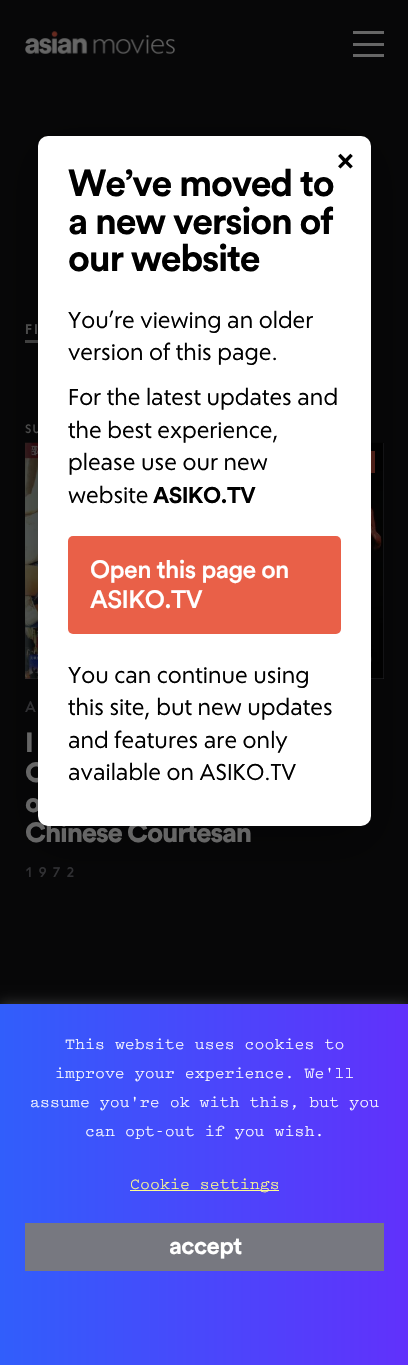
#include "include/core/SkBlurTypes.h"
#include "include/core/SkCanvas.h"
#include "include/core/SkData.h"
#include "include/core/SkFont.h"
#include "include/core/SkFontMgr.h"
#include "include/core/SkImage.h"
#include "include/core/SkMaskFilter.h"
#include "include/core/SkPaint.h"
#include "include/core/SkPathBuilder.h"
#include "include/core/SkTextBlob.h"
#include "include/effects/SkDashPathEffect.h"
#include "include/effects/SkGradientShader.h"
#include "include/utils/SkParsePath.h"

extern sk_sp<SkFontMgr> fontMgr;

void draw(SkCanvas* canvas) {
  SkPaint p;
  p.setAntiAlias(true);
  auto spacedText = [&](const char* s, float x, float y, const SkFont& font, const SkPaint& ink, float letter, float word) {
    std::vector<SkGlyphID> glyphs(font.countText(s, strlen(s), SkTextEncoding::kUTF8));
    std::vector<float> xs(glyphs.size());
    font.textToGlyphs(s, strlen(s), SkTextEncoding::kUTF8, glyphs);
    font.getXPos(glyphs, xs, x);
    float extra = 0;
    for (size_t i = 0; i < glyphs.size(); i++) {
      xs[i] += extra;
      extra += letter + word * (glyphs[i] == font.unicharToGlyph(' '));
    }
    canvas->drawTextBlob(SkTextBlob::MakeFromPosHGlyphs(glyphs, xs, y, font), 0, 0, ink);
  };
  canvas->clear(SkColorSetRGB(7, 7, 8));
  canvas->drawImageRect(SkImages::DeferredFromEncodedData(SkData::MakeFromFileName("images/1.png")), SkRect::MakeLTRB(25, 31, 175, 54), SkSamplingOptions());
  p.setColor(SkColorSetRGB(102, 102, 102));
  canvas->drawRect(SkRect::MakeLTRB(353, 31, 384, 34), p);
  canvas->drawRect(SkRect::MakeLTRB(353, 43, 384, 46), p);
  canvas->drawRect(SkRect::MakeLTRB(353, 54, 384, 57), p);
  p.setColor(SkColorSetRGB(74, 74, 74));
  canvas->drawRect(SkRect::MakeLTRB(25, 340, 38, 343), p);
  p.setColor(SkColorSetRGB(48, 48, 51));
  canvas->drawRect(SkRect::MakeLTRB(25, 678, 38, 679), p);
  canvas->drawImageRect(SkImages::DeferredFromEncodedData(SkData::MakeFromFileName("images/2.png")), SkRect::MakeLTRB(25, 442, 38, 679), SkSamplingOptions());
  canvas->drawRect(SkRect::MakeLTRB(371, 443, 384, 679), p);
  canvas->drawImageRect(SkImages::DeferredFromEncodedData(SkData::MakeFromFileName("images/3.png")), SkRect::MakeLTRB(371, 442, 384, 679), SkSamplingOptions());
  p.setColor(SkColorSetRGB(93, 38, 29));
  canvas->drawRect(SkRect::MakeLTRB(371, 451, 375, 473), p);
  p.setColor(SkColorSetARGB(102, 0, 0, 0));
  p.setMaskFilter(SkMaskFilter::MakeBlur(kNormal_SkBlurStyle, 25));
  canvas->drawRoundRect(SkRect::MakeLTRB(38, 149, 371, 839), 10, 10, p);
  p.setMaskFilter(nullptr);
  p.setColor(SkColorSetARGB(77, 172, 171, 171));
  p.setMaskFilter(SkMaskFilter::MakeBlur(kNormal_SkBlurStyle, 6));
  canvas->drawRect(SkRect::MakeLTRB(0, 1003, 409, 1364), p);
  p.setMaskFilter(nullptr);
  {
    const SkColor colors[] = {SkColorSetRGB(49, 94, 251), SkColorSetRGB(97, 49, 251)};
    const float stops[] = {0, 1};
    const SkPoint ends[] = {{0, 1184}, {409, 1184}};
    p.setShader(SkGradientShader::MakeLinear(ends, colors, stops, 2, SkTileMode::kClamp));
    p.setAlpha(255);
  }
  canvas->drawRect(SkRect::MakeLTRB(0, 1004, 408, 1365), p);
  p.setShader(nullptr);
  p.setColor(SkColorSetRGB(254, 252, 143));
  canvas->drawRect(SkRect::MakeLTRB(130, 1190, 279, 1191), p);
  p.setColor(SkColorSetRGB(119, 120, 128));
  canvas->drawRect(SkRect::MakeLTRB(25, 1223, 384, 1271), p);
  SkFont font1(fontMgr->matchFamilyStyle("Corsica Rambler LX", SkFontStyle(600, SkFontStyle::kNormal_Width, SkFontStyle::kUpright_Slant)), 13.75f);
  font1.setSubpixel(true);
  p.setColor(SkColorSetRGB(74, 74, 74));
  spacedText("FI", 25, 334, font1, p, 2, 0);
  SkFont font2(fontMgr->matchFamilyStyle("Corsica Rambler LX", SkFontStyle(500, SkFontStyle::kNormal_Width, SkFontStyle::kUpright_Slant)), 12);
  font2.setSubpixel(true);
  spacedText("SU", 25, 433, font2, p, 1, 0);
  SkFont font3(fontMgr->matchFamilyStyle("Corsica Rambler LX", SkFontStyle(500, SkFontStyle::kNormal_Width, SkFontStyle::kUpright_Slant)), 15);
  font3.setSubpixel(true);
  p.setColor(SkColorSetRGB(48, 48, 51));
  canvas->drawString("A", 25, 712, font3, p);
  SkFont font4(fontMgr->matchFamilyStyle("Circular", SkFontStyle(900, SkFontStyle::kNormal_Width, SkFontStyle::kUpright_Slant)), 27.5f);
  font4.setSubpixel(true);
  p.setColor(SkColorSetRGB(102, 102, 102));
  spacedText("I", 25, 752, font4, p, -1.25f, 0);
  spacedText("C", 25, 782, font4, p, -1.25f, 0);
  spacedText("o", 25, 812, font4, p, -1.25f, 0);
  spacedText("Chinese Courtesan", 25, 842, font4, p, -1.25f, 0);
  p.setColor(SK_ColorWHITE);
  canvas->drawRoundRect(SkRect::MakeLTRB(38, 136, 371, 826), 10, 10, p);
  SkFont font5(fontMgr->matchFamilyStyle("Circular", SkFontStyle::Bold()), 30);
  font5.setSubpixel(true);
  p.setColor(SK_ColorBLACK);
  spacedText("×", 337, 170, font5, p, 5, 0);
  SkFont font6(fontMgr->matchFamilyStyle("Corsica Rambler LX", SkFontStyle::Normal()), 22.5f);
  font6.setSubpixel(true);
  canvas->drawString("available on ASIKO.TV", 68, 780, font6, p);
  canvas->drawString("and features are only", 68, 748, font6, p);
  canvas->drawString("this site, but new updates", 68, 715, font6, p);
  canvas->drawString("You can continue using", 68, 683, font6, p);
  p.setColor(SkColorSetRGB(233, 96, 72));
  canvas->drawRoundRect(SkRect::MakeLTRB(68, 536, 341, 634), 5, 5, p);
  SkFont font7(fontMgr->matchFamilyStyle("Circular", SkFontStyle(500, SkFontStyle::kNormal_Width, SkFontStyle::kUpright_Slant)), 25);
  font7.setSubpixel(true);
  p.setColor(SK_ColorWHITE);
  spacedText("ASIKO.TV", 90, 608, font7, p, -0.6f, 0);
  spacedText("Open this page on", 90, 578, font7, p, -0.6f, 0);
  SkFont font8(fontMgr->matchFamilyStyle("Circular", SkFontStyle::Bold()), 22.5f);
  font8.setSubpixel(true);
  p.setColor(SK_ColorBLACK);
  spacedText("ASIKO.TV", 153, 503, font8, p, -0.6f, 0);
  canvas->drawString("website", 68, 503, font6, p);
  canvas->drawString("please use our new", 68, 470, font6, p);
  canvas->drawString("the best experience,", 68, 438, font6, p);
  canvas->drawString("For the latest updates and", 68, 405, font6, p);
  canvas->drawString("version of this page.", 68, 360, font6, p);
  canvas->drawString("You’re viewing an older", 68, 328, font6, p);
  SkFont font9(fontMgr->matchFamilyStyle("Circular", SkFontStyle::Bold()), 37.5f);
  font9.setSubpixel(true);
  spacedText("our website", 68, 271, font9, p, -1.25f, 0);
  spacedText("a new version of", 68, 234, font9, p, -1.25f, 0);
  spacedText("We’ve moved to", 68, 196, font9, p, -1.25f, 0);
  SkFont font10(fontMgr->matchFamilyStyle("Corsica Rambler LX", SkFontStyle(500, SkFontStyle::kNormal_Width, SkFontStyle::kUpright_Slant)), 13.75f);
  font10.setSubpixel(true);
  p.setColor(SkColorSetRGB(48, 48, 51));
  spacedText("1972", 25, 877, font10, p, 6, 0);
  SkFont font11(fontMgr->matchFamilyStyle("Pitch", SkFontStyle::Normal()), 16.25f);
  font11.setSubpixel(true);
  p.setColor(SK_ColorWHITE);
  canvas->drawString("This website uses cookies to", 65, 1049, font11, p);
  canvas->drawString("improve your experience. We'll", 55, 1078, font11, p);
  canvas->drawString("assume you're ok with this, but you", 30, 1107, font11, p);
  canvas->drawString("can opt-out if you wish.", 85, 1136, font11, p);
  p.setColor(SkColorSetRGB(254, 252, 143));
  canvas->drawString("Cookie settings", 130, 1189, font11, p);
  SkFont font12(fontMgr->matchFamilyStyle("Circular", SkFontStyle::Bold()), 24);
  font12.setSubpixel(true);
  p.setColor(SK_ColorWHITE);
  spacedText("accept", 169, 1254, font12, p, -0.6f, 0);
}
